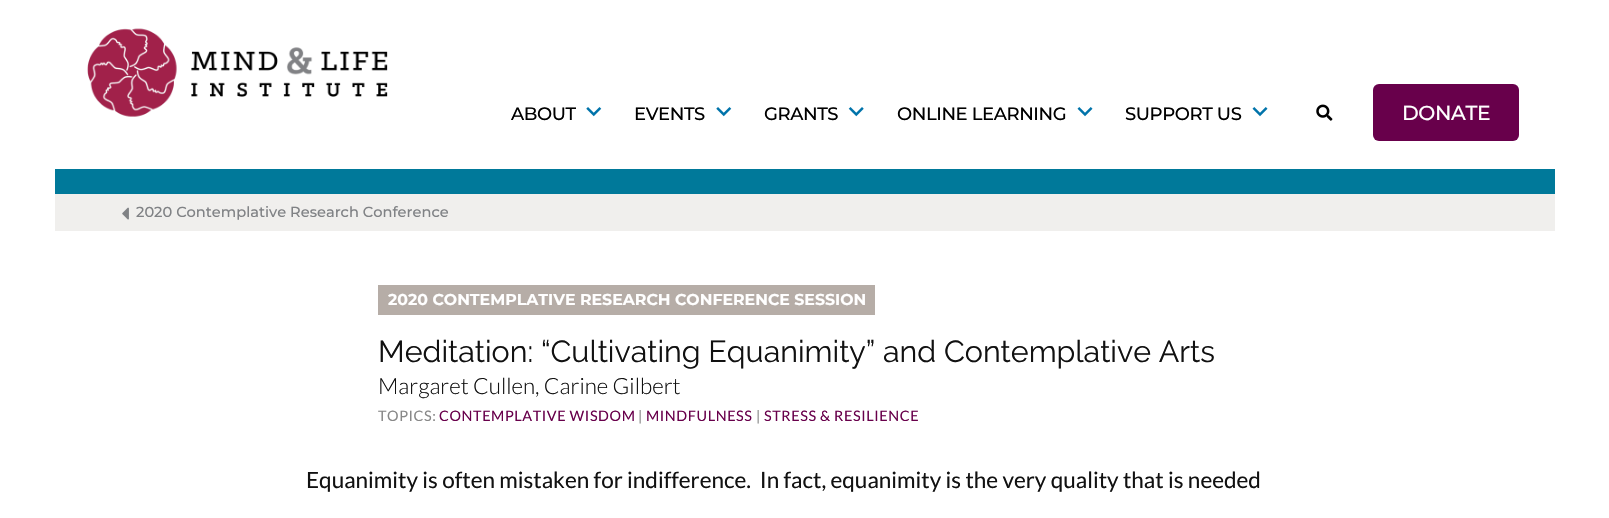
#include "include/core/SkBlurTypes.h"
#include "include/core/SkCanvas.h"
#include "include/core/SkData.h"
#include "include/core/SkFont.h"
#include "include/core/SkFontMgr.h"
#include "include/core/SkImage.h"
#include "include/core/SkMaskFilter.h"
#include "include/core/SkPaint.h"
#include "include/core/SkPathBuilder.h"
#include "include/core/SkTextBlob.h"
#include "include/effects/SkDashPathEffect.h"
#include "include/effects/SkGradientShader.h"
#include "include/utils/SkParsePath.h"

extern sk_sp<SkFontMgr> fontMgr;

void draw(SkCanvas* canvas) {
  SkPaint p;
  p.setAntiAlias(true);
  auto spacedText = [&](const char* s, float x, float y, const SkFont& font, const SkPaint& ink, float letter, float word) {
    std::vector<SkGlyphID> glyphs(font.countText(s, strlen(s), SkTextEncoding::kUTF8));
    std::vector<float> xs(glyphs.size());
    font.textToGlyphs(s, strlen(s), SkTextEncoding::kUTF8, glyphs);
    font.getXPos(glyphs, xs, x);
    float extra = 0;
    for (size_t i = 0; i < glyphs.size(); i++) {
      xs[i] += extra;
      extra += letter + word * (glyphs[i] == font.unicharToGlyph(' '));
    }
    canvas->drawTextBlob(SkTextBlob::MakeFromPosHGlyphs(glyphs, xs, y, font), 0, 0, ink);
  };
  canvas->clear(SK_ColorWHITE);
  canvas->drawImageRect(SkImages::DeferredFromEncodedData(SkData::MakeFromFileName("images/1.png")), SkRect::MakeLTRB(87, 28, 388, 117), SkSamplingOptions());
  canvas->drawImageRect(SkImages::DeferredFromEncodedData(SkData::MakeFromFileName("images/2.png")), SkRect::MakeLTRB(586, 107, 602, 117), SkSamplingOptions());
  canvas->drawImageRect(SkImages::DeferredFromEncodedData(SkData::MakeFromFileName("images/2.png")), SkRect::MakeLTRB(716, 107, 732, 117), SkSamplingOptions());
  canvas->drawImageRect(SkImages::DeferredFromEncodedData(SkData::MakeFromFileName("images/3.png")), SkRect::MakeLTRB(848, 107, 864, 117), SkSamplingOptions());
  canvas->drawImageRect(SkImages::DeferredFromEncodedData(SkData::MakeFromFileName("images/4.png")), SkRect::MakeLTRB(1077, 107, 1093, 117), SkSamplingOptions());
  canvas->drawImageRect(SkImages::DeferredFromEncodedData(SkData::MakeFromFileName("images/4.png")), SkRect::MakeLTRB(1252, 107, 1268, 117), SkSamplingOptions());
  canvas->drawImageRect(SkImages::DeferredFromEncodedData(SkData::MakeFromFileName("images/5.png")), SkRect::MakeLTRB(1316, 104, 1333, 121), SkSamplingOptions());
  p.setColor(SkColorSetRGB(104, 0, 75));
  canvas->drawRoundRect(SkRect::MakeLTRB(1373, 84, 1519, 141), 6, 6, p);
  p.setColor(SkColorSetRGB(0, 121, 154));
  canvas->drawRect(SkRect::MakeLTRB(55, 169, 1555, 194), p);
  p.setColor(SkColorSetRGB(240, 239, 237));
  canvas->drawRect(SkRect::MakeLTRB(55, 194, 1555, 231), p);
  canvas->drawImageRect(SkImages::DeferredFromEncodedData(SkData::MakeFromFileName("images/6.png")), SkRect::MakeLTRB(122, 207, 129, 220), SkSamplingOptions());
  p.setColor(SkColorSetRGB(182, 173, 167));
  canvas->drawRect(SkRect::MakeLTRB(378, 285, 875, 315), p);
  SkFont font1(fontMgr->matchFamilyStyle("Montserrat", SkFontStyle(500, SkFontStyle::kNormal_Width, SkFontStyle::kUpright_Slant)), 18);
  font1.setSubpixel(true);
  p.setColor(SK_ColorBLACK);
  spacedText("ABOUT", 511, 120, font1, p, -0.4f, 0);
  spacedText("EVENTS", 634, 120, font1, p, -0.4f, 0);
  spacedText("GRANTS", 764, 120, font1, p, -0.4f, 0);
  spacedText("ONLINE LEARNING", 897, 120, font1, p, -0.4f, 0);
  spacedText("SUPPORT US", 1125, 120, font1, p, -0.4f, 0);
  SkFont font2(fontMgr->matchFamilyStyle("Montserrat", SkFontStyle(500, SkFontStyle::kNormal_Width, SkFontStyle::kUpright_Slant)), 20.25f);
  font2.setSubpixel(true);
  p.setColor(SK_ColorWHITE);
  spacedText("DONATE", 1402, 120, font2, p, -0.4f, 0);
  SkFont font3(fontMgr->matchFamilyStyle("Montserrat", SkFontStyle(500, SkFontStyle::kNormal_Width, SkFontStyle::kUpright_Slant)), 14.6f);
  font3.setSubpixel(true);
  p.setColor(SkColorSetRGB(128, 130, 133));
  canvas->drawString("2020 Contemplative Research Conference", 136, 217, font3, p);
  SkFont font4(fontMgr->matchFamilyStyle("Montserrat", SkFontStyle::Bold()), 15.75f);
  font4.setSubpixel(true);
  p.setColor(SK_ColorWHITE);
  canvas->drawString("2020 CONTEMPLATIVE RESEARCH CONFERENCE SESSION", 388, 305, font4, p);
  SkFont font5(fontMgr->matchFamilyStyle("Raleway", SkFontStyle::Normal()), 30.4f);
  font5.setSubpixel(true);
  p.setColor(SkColorSetRGB(17, 17, 17));
  canvas->drawString("Meditation: “Cultivating Equanimity” and Contemplative Arts", 378, 362, font5, p);
  SkFont font6(fontMgr->matchFamilyStyle("Lato", SkFontStyle(300, SkFontStyle::kNormal_Width, SkFontStyle::kUpright_Slant)), 22.4f);
  font6.setSubpixel(true);
  canvas->drawString("Margaret Cullen, Carine Gilbert", 378, 394, font6, p);
  SkFont font7(fontMgr->matchFamilyStyle("Lato", SkFontStyle::Normal()), 14.4f);
  font7.setSubpixel(true);
  p.setColor(SkColorSetRGB(136, 136, 136));
  spacedText("TOPICS:", 378, 421, font7, p, 0.6f, 0);
  p.setColor(SkColorSetRGB(104, 0, 75));
  spacedText("CONTEMPLATIVE WISDOM", 439, 421, font7, p, 0.6f, 0);
  p.setColor(SkColorSetRGB(136, 136, 136));
  spacedText("|", 638, 421, font7, p, 0.6f, 0);
  p.setColor(SkColorSetRGB(104, 0, 75));
  spacedText("MINDFULNESS", 646, 421, font7, p, 0.6f, 0);
  p.setColor(SkColorSetRGB(136, 136, 136));
  spacedText("|", 756, 421, font7, p, 0.6f, 0);
  p.setColor(SkColorSetRGB(104, 0, 75));
  spacedText("STRESS & RESILIENCE", 764, 421, font7, p, 0.6f, 0);
  SkFont font8(fontMgr->matchFamilyStyle("Lato", SkFontStyle::Normal()), 22.5f);
  font8.setSubpixel(true);
  p.setColor(SkColorSetRGB(17, 17, 17));
  canvas->drawString("Equanimity is often mistaken for indifference.  In fact, equanimity is the very quality that is needed", 306, 488, font8, p);
}
